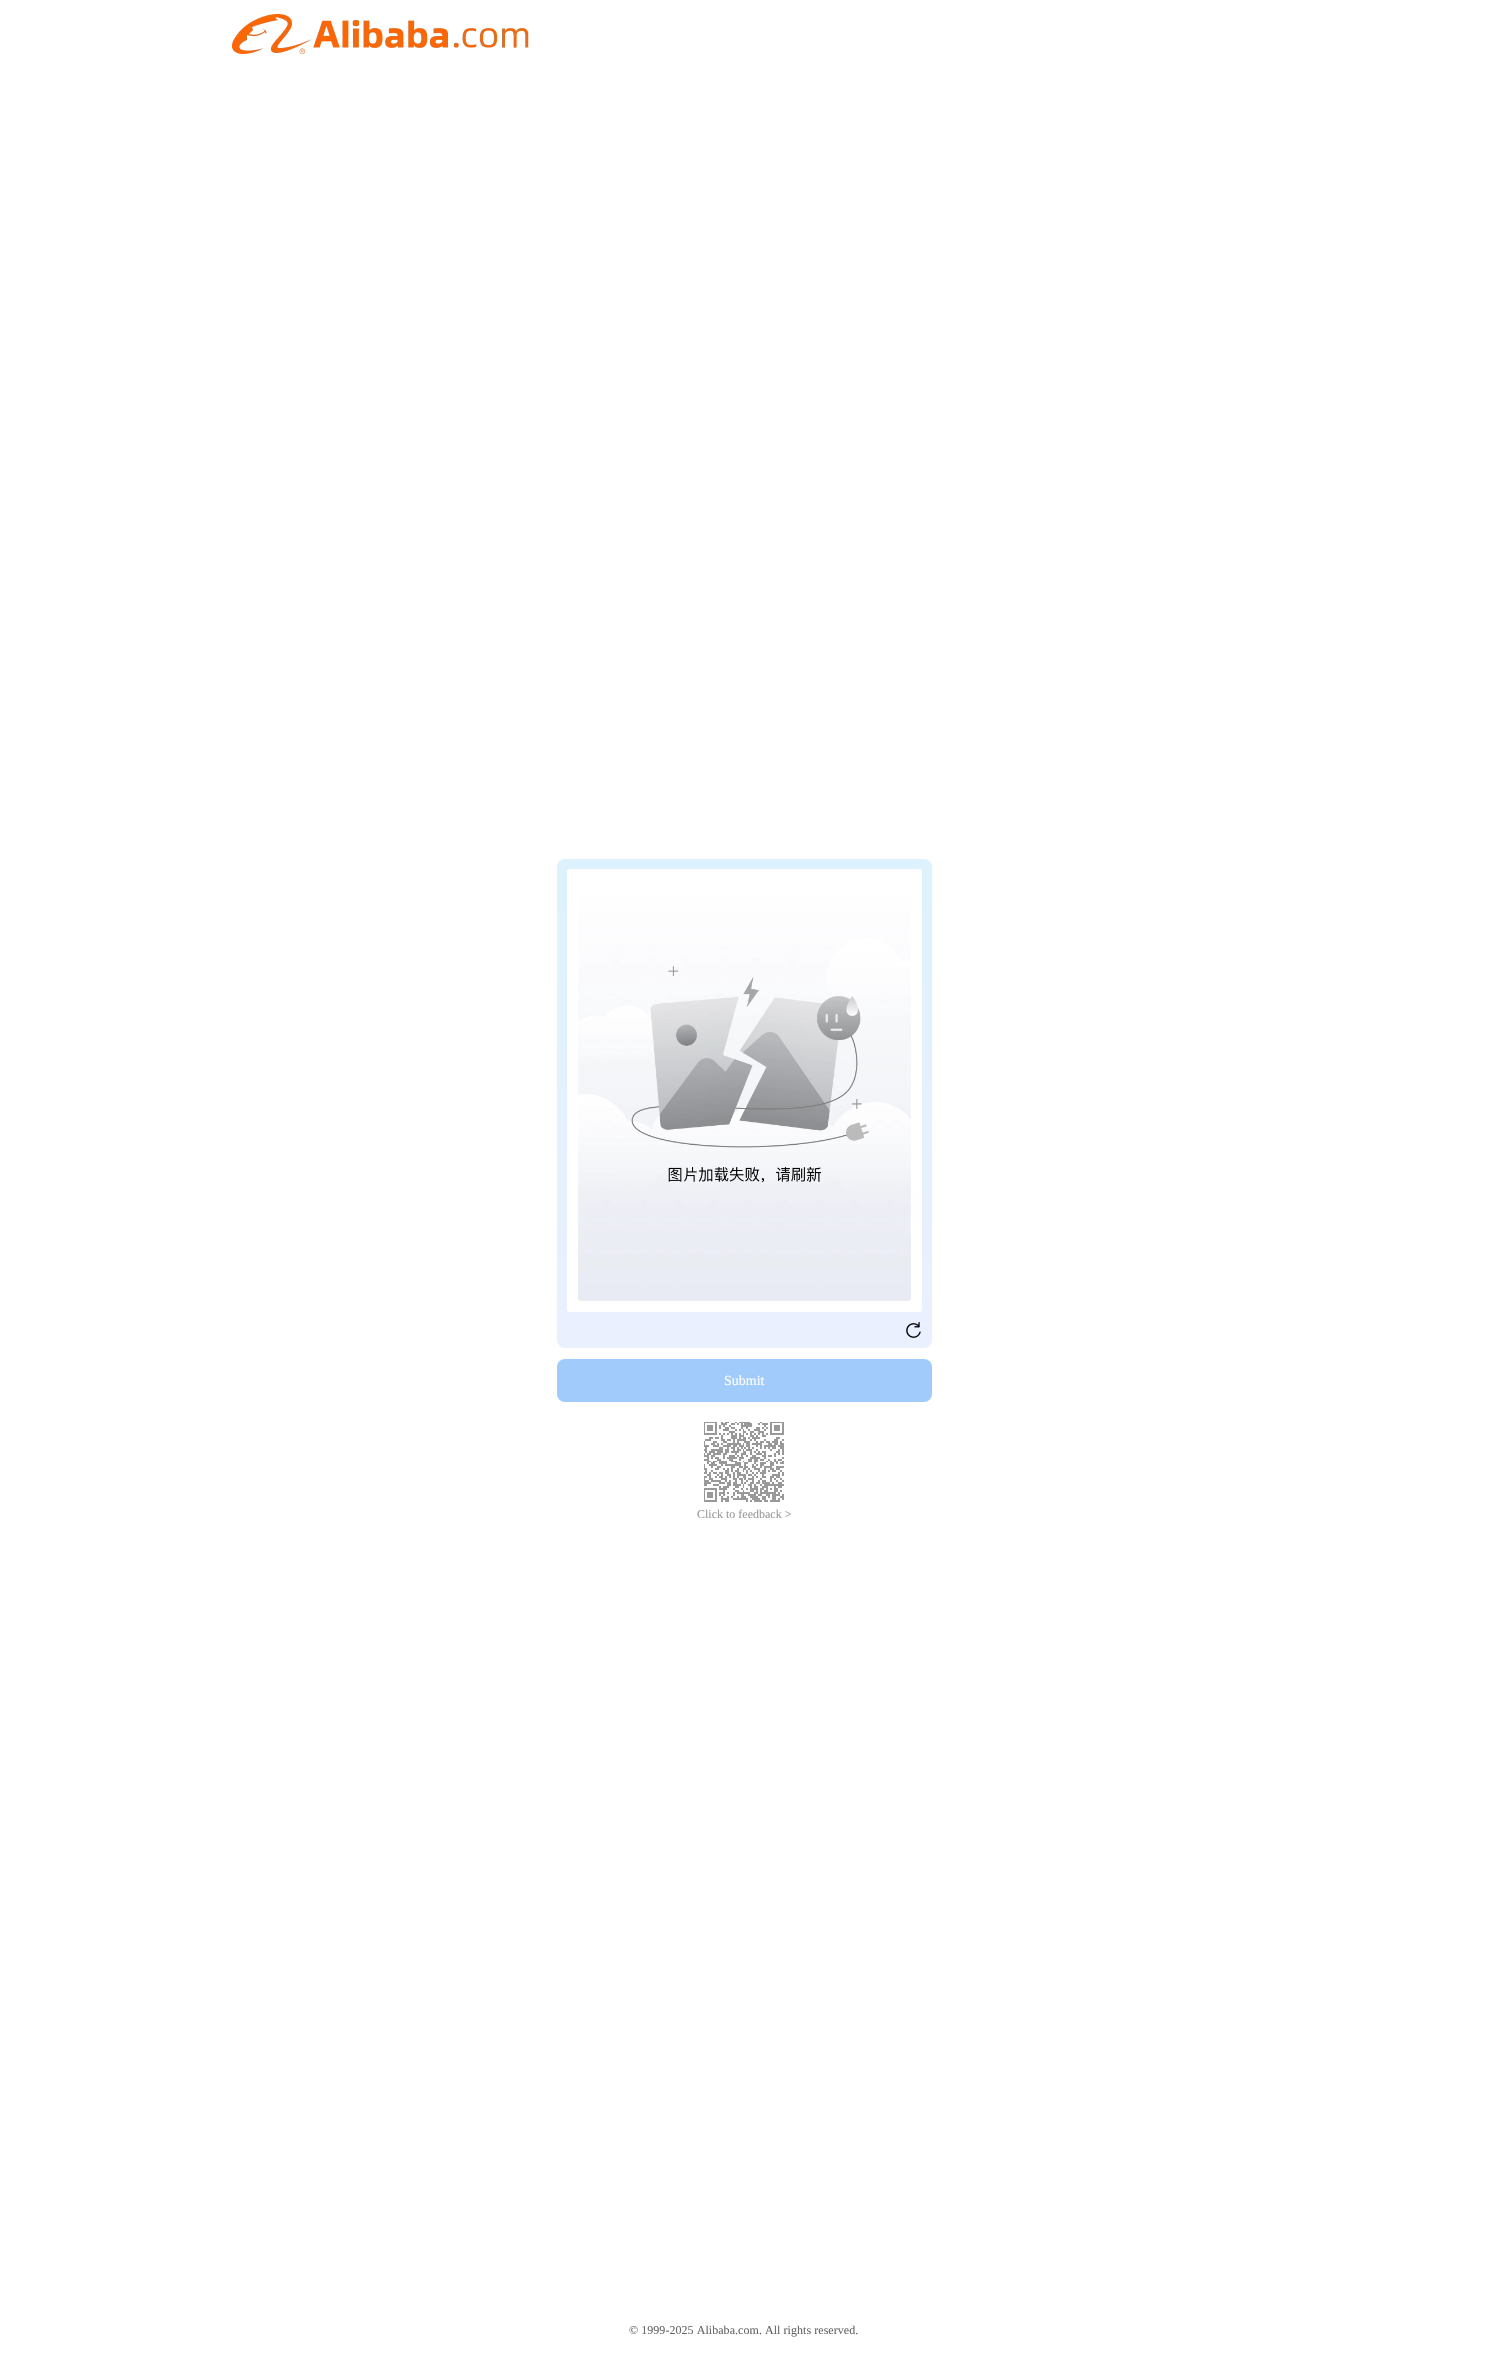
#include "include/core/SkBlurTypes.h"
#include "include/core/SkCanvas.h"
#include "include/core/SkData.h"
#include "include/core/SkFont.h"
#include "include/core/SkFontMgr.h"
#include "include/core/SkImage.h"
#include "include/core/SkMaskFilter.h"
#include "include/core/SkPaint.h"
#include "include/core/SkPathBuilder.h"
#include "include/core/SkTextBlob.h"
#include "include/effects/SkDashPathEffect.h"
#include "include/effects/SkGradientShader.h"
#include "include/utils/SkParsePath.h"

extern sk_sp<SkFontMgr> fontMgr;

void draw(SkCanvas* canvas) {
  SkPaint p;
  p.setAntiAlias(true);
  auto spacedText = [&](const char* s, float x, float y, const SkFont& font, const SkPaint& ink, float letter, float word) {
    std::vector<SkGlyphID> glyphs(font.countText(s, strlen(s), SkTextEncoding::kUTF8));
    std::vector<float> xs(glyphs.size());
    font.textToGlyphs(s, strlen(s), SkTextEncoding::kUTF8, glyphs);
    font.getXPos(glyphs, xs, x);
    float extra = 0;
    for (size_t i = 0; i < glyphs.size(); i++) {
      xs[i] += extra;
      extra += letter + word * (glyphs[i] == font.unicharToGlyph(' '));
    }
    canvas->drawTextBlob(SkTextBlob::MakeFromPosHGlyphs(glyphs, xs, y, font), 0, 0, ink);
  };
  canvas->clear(SK_ColorWHITE);
  canvas->drawImageRect(SkImages::DeferredFromEncodedData(SkData::MakeFromFileName("images/1.png")), SkRect::MakeLTRB(232, 14, 529, 54), SkSamplingOptions());
  {
    const SkColor colors[] = {SkColorSetRGB(221, 242, 253), SkColorSetRGB(235, 240, 255)};
    const float stops[] = {0, 1};
    const SkPoint ends[] = {{745, 859}, {745, 1348}};
    p.setShader(SkGradientShader::MakeLinear(ends, colors, stops, 2, SkTileMode::kClamp));
    p.setAlpha(255);
  }
  canvas->drawRoundRect(SkRect::MakeLTRB(557, 859, 932, 1348), 8, 8, p);
  canvas->drawImageRect(SkImages::DeferredFromEncodedData(SkData::MakeFromFileName("images/2.png")), SkRect::MakeLTRB(567, 869, 922, 1312), SkSamplingOptions());
  canvas->drawImageRect(SkImages::DeferredFromEncodedData(SkData::MakeFromFileName("images/3.png")), SkRect::MakeLTRB(906, 1322, 921, 1338), SkSamplingOptions());
  p.setShader(nullptr);
  p.setColor(SkColorSetRGB(160, 203, 250));
  canvas->drawRoundRect(SkRect::MakeLTRB(557, 1359, 932, 1402), 8, 8, p);
  canvas->drawImageRect(SkImages::DeferredFromEncodedData(SkData::MakeFromFileName("images/4.png")), SkRect::MakeLTRB(704, 1422, 784, 1502), SkSamplingOptions());
  SkFont font1(fontMgr->matchFamilyStyle("Liberation Serif", SkFontStyle::Normal()), 14);
  font1.setSubpixel(true);
  p.setColor(SK_ColorWHITE);
  canvas->drawString("Submit", 724, 1385, font1, p);
  SkFont font2(fontMgr->matchFamilyStyle("Liberation Serif", SkFontStyle::Normal()), 12);
  font2.setSubpixel(true);
  p.setColor(SkColorSetRGB(153, 153, 153));
  canvas->drawString("Click to feedback >", 697, 1518, font2, p);
  p.setColor(SkColorSetRGB(102, 102, 102));
  spacedText("© 1999-2025 Alibaba.com. All rights reserved.", 629, 2334, font2, p, 0.05f, 0);
}
